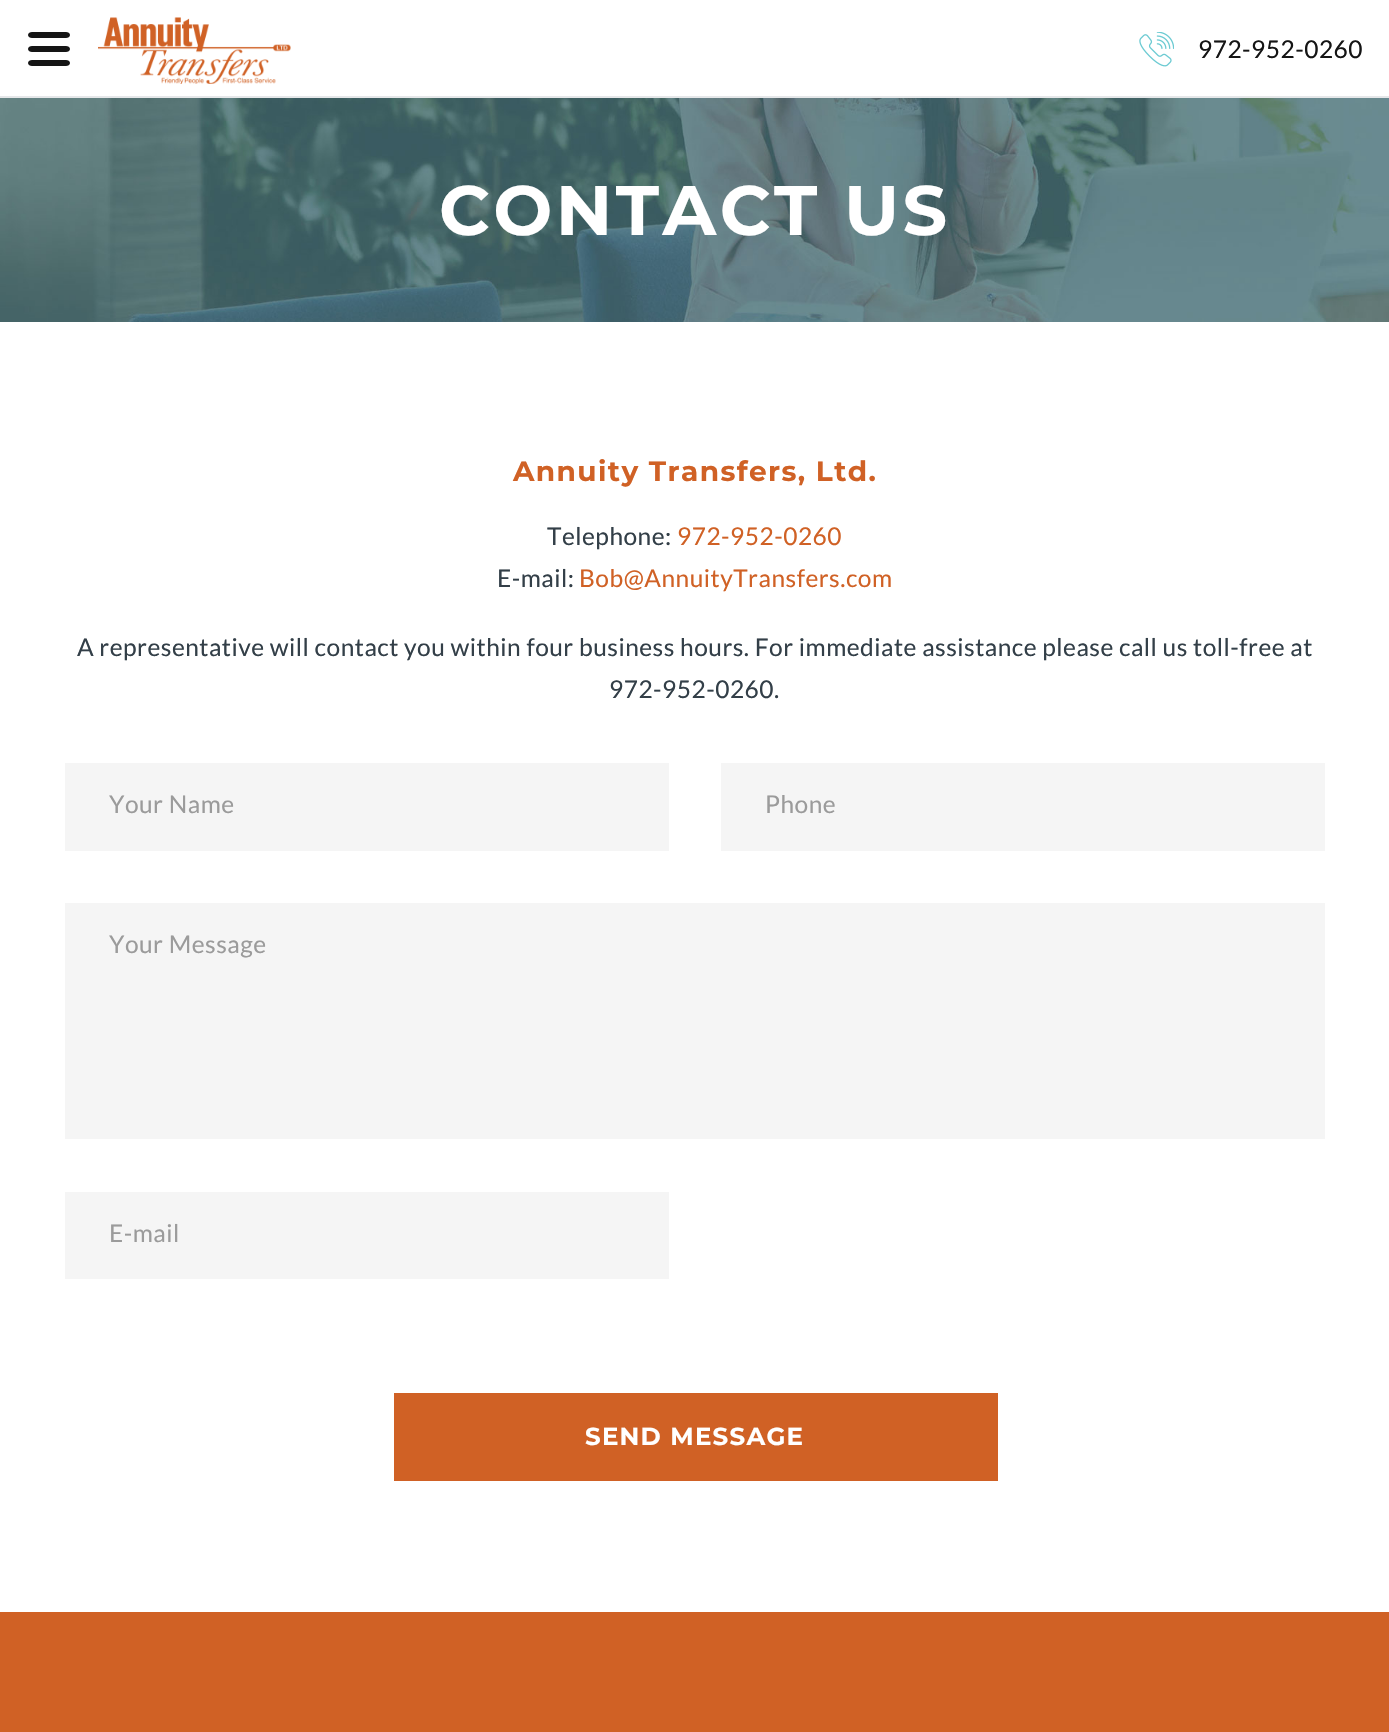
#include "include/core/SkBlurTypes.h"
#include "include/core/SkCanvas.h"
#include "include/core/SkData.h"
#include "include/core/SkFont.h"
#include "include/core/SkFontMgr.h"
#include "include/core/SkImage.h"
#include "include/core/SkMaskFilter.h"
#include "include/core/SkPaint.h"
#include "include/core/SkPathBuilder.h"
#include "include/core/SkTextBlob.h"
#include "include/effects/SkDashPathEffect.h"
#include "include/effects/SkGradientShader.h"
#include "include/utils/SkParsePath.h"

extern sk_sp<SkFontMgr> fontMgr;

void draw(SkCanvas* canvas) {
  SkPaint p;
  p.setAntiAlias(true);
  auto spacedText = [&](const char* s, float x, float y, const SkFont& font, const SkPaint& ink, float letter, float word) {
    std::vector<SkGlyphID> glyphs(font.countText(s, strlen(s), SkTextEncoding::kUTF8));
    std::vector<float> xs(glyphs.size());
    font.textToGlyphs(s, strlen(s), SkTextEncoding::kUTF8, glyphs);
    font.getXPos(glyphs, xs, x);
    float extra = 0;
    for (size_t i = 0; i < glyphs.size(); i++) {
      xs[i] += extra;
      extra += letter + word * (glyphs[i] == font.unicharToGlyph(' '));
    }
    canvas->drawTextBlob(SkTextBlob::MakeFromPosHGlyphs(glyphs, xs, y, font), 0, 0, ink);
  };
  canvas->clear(SK_ColorWHITE);
  p.setColor(SkColorSetRGB(21, 21, 21));
  canvas->drawPath(SkPathBuilder().moveTo(66, 52).lineTo(32, 52).cubicTo(30, 52, 28, 51, 28, 49).cubicTo(28, 47, 30, 46, 32, 46).lineTo(66, 46).cubicTo(68, 46, 70, 47, 70, 49).cubicTo(70, 51, 68, 52, 66, 52).close().moveTo(66, 66).lineTo(32, 66).cubicTo(30, 66, 28, 65, 28, 63).cubicTo(28, 61, 30, 60, 32, 60).lineTo(66, 60).cubicTo(68, 60, 70, 61, 70, 63).cubicTo(70, 65, 68, 66, 66, 66).close().moveTo(66, 38).lineTo(32, 38).cubicTo(30, 38, 28, 37, 28, 35).cubicTo(28, 33, 30, 32, 32, 32).lineTo(66, 32).cubicTo(68, 32, 70, 33, 70, 35).cubicTo(70, 37, 68, 38, 66, 38).close().detach(), p);
  canvas->drawImageRect(SkImages::DeferredFromEncodedData(SkData::MakeFromFileName("images/1.png")), SkRect::MakeLTRB(98, 17, 291, 84), SkSamplingOptions());
  p.setColor(SkColorSetRGB(229, 231, 233));
  canvas->drawRect(SkRect::MakeLTRB(0, 96, 1389, 98), p);
  canvas->drawImageRect(SkImages::DeferredFromEncodedData(SkData::MakeFromFileName("images/2.png")), SkRect::MakeLTRB(1139, 32, 1174, 67), SkSamplingOptions());
  canvas->drawImageRect(SkImages::DeferredFromEncodedData(SkData::MakeFromFileName("images/3.png")), SkRect::MakeLTRB(0, 98, 1389, 322), SkSamplingOptions());
  p.setColor(SkColorSetRGB(245, 245, 245));
  canvas->drawRect(SkRect::MakeLTRB(65, 763, 669, 851), p);
  canvas->drawRect(SkRect::MakeLTRB(721, 763, 1325, 851), p);
  canvas->drawRect(SkRect::MakeLTRB(65, 903, 1325, 1139), p);
  canvas->drawRect(SkRect::MakeLTRB(65, 1192, 669, 1279), p);
  p.setColor(SkColorSetRGB(208, 97, 37));
  canvas->drawRect(SkRect::MakeLTRB(394, 1393, 998, 1481), p);
  canvas->drawRect(SkRect::MakeLTRB(0, 1612, 1389, 1732), p);
  SkFont font1(fontMgr->matchFamilyStyle("Lato", SkFontStyle::Normal()), 24.5f);
  font1.setSubpixel(true);
  p.setColor(SkColorSetRGB(21, 21, 21));
  spacedText("972-952-0260", 1198, 58, font1, p, 0.49f, 0);
  SkFont font2(fontMgr->matchFamilyStyle("Montserrat", SkFontStyle::Bold()), 70);
  font2.setSubpixel(true);
  p.setColor(SK_ColorWHITE);
  spacedText("CONTACT US", 439, 235, font2, p, 3.5f, 0);
  SkFont font3(fontMgr->matchFamilyStyle("Montserrat", SkFontStyle::Bold()), 28);
  font3.setSubpixel(true);
  p.setColor(SkColorSetRGB(208, 97, 37));
  spacedText("Annuity Transfers, Ltd.", 513, 481, font3, p, 1.4f, 0);
  p.setColor(SkColorSetRGB(51, 63, 72));
  spacedText("Telephone:", 547, 545, font1, p, 0.49f, 0);
  p.setColor(SkColorSetRGB(208, 97, 37));
  spacedText("972-952-0260", 677, 545, font1, p, 0.49f, 0);
  p.setColor(SkColorSetRGB(51, 63, 72));
  spacedText("E-mail:", 497, 587, font1, p, 0.49f, 0);
  p.setColor(SkColorSetRGB(208, 97, 37));
  spacedText("Bob@AnnuityTransfers.com", 579, 587, font1, p, 0.49f, 0);
  p.setColor(SkColorSetRGB(51, 63, 72));
  spacedText("A representative will contact you within four business hours. For immediate assistance please call us toll-free at", 77, 656, font1, p, 0.49f, 0);
  spacedText("972-952-0260.", 609, 698, font1, p, 0.49f, 0);
  p.setColor(SkColorSetRGB(155, 155, 155));
  spacedText("Your Name", 109, 813, font1, p, 0.49f, 0);
  spacedText("Phone", 765, 813, font1, p, 0.49f, 0);
  spacedText("Your Message", 109, 953, font1, p, 0.49f, 0);
  spacedText("E-mail", 109, 1242, font1, p, 0.49f, 0);
  SkFont font4(fontMgr->matchFamilyStyle("Montserrat", SkFontStyle::Bold()), 24.5f);
  font4.setSubpixel(true);
  p.setColor(SK_ColorWHITE);
  spacedText("SEND MESSAGE", 585, 1445, font4, p, 1.25f, 0);
}
